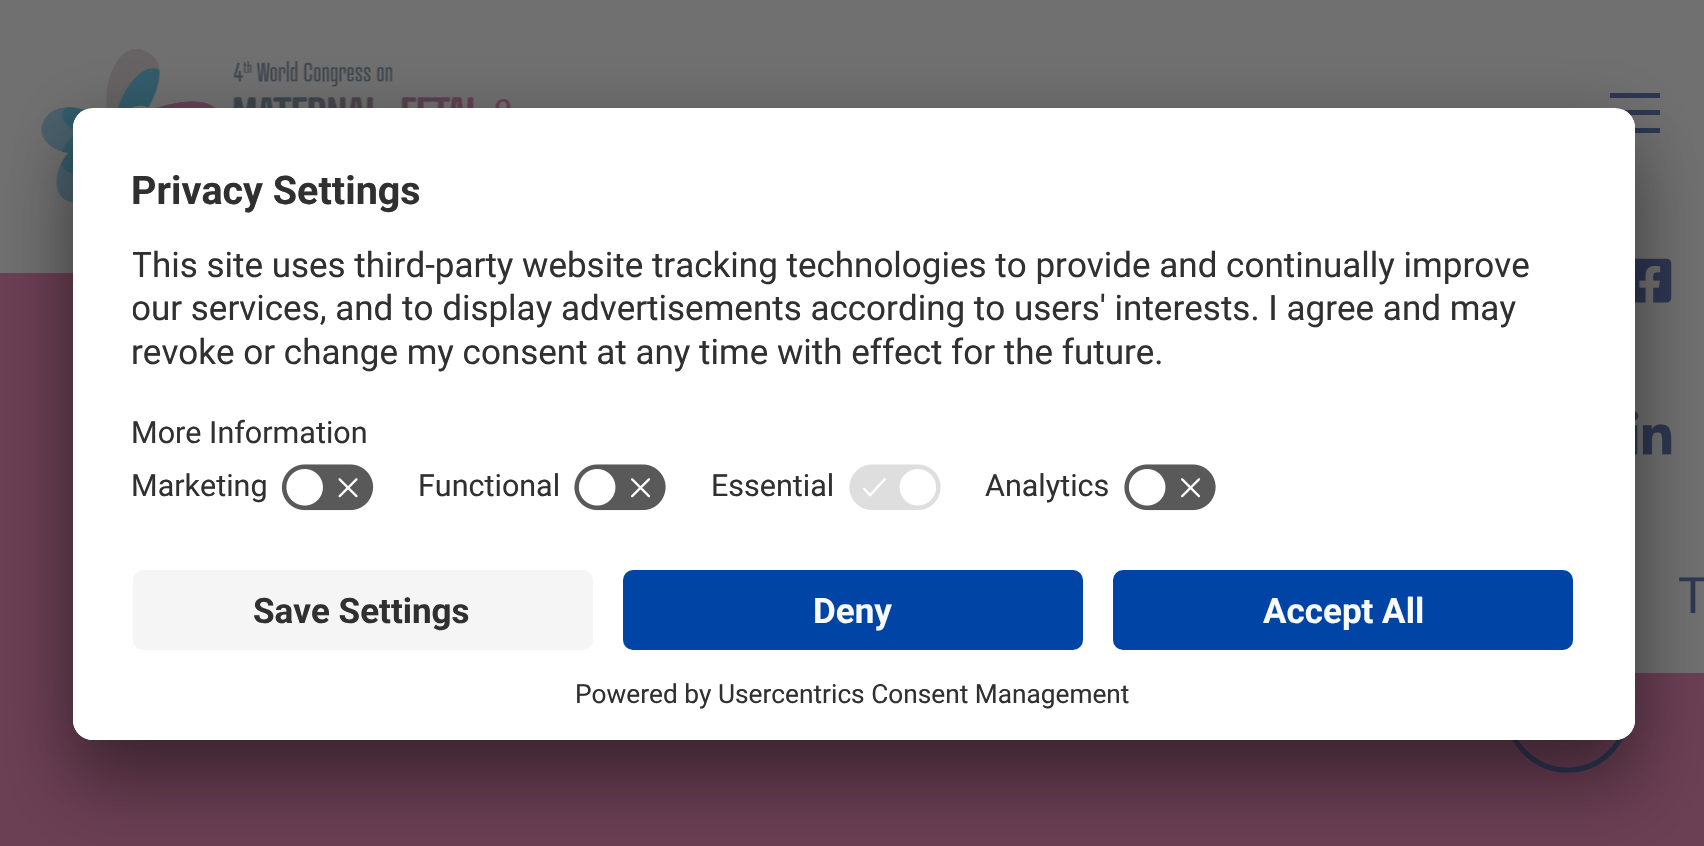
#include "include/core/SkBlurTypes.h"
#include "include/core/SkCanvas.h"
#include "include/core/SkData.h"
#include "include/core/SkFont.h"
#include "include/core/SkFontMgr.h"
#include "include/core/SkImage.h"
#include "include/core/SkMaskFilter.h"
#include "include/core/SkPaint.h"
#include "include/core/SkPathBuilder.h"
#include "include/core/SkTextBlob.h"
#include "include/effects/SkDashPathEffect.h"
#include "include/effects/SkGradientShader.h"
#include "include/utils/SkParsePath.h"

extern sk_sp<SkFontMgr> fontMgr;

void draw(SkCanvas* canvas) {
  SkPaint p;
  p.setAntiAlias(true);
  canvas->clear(SkColorSetRGB(107, 63, 84));
  p.setColor(SkColorSetRGB(112, 112, 112));
  canvas->drawRect(SkRect::MakeLTRB(0, 0, 1704, 273), p);
  canvas->drawImageRect(SkImages::DeferredFromEncodedData(SkData::MakeFromFileName("images/1.png")), SkRect::MakeLTRB(41, 49, 511, 206), SkSamplingOptions());
  p.setColor(SkColorSetRGB(46, 55, 82));
  canvas->drawRect(SkRect::MakeLTRB(1635, 128, 1660, 133), p);
  canvas->drawRect(SkRect::MakeLTRB(1610, 93, 1660, 98), p);
  canvas->drawRect(SkRect::MakeLTRB(1623, 110, 1660, 115), p);
  p.setColor(SkColorSetRGB(112, 112, 112));
  canvas->drawRect(SkRect::MakeLTRB(1635, 273, 1704, 673), p);
  canvas->drawImageRect(SkImages::DeferredFromEncodedData(SkData::MakeFromFileName("images/5.png")), SkRect::MakeLTRB(1635, 258, 1672, 303), SkSamplingOptions());
  canvas->drawImageRect(SkImages::DeferredFromEncodedData(SkData::MakeFromFileName("images/6.png")), SkRect::MakeLTRB(1635, 411, 1672, 455), SkSamplingOptions());
  p.setStyle(SkPaint::kStroke_Style);
  p.setStrokeWidth(5);
  p.setColor(SkColorSetRGB(83, 59, 83));
  canvas->drawCircle(1567.5f, 710.5f, 60, p);
  canvas->save();
  canvas->clipPath(SkPathBuilder().moveTo(1505, 772.5f).lineTo(1505, 647.5f).lineTo(1630, 647.5f).lineTo(1630, 772.5f).close().detach(), true);
  p.setColor(SkColorSetRGB(46, 55, 82));
  canvas->drawPath(SkPathBuilder().moveTo(1507.5f, 710).cubicTo(1507.5f, 677, 1534.5f, 650, 1567.5f, 650).cubicTo(1600.5f, 650, 1627.5f, 677, 1627.5f, 710).cubicTo(1627.5f, 743, 1600.5f, 770, 1567.5f, 770).cubicTo(1535, 770, 1508.5f, 744, 1507.5f, 712).detach(), p);
  canvas->restore();
  p.setStyle(SkPaint::kFill_Style);
  p.setColor(SkColorSetARGB(77, 0, 0, 0));
  p.setMaskFilter(SkMaskFilter::MakeBlur(kNormal_SkBlurStyle, 35));
  canvas->drawRoundRect(SkRect::MakeLTRB(73, 158, 1635, 790), 20, 20, p);
  p.setMaskFilter(nullptr);
  p.setColor(SkColorSetARGB(56, 0, 0, 0));
  p.setMaskFilter(SkMaskFilter::MakeBlur(kNormal_SkBlurStyle, 32.5f));
  canvas->drawRoundRect(SkRect::MakeLTRB(73, 120, 1635, 753), 20, 20, p);
  p.setMaskFilter(nullptr);
  p.setColor(SK_ColorWHITE);
  canvas->drawRoundRect(SkRect::MakeLTRB(73, 108, 1635, 740), 20, 20, p);
  canvas->save();
  canvas->clipPath(SkPathBuilder().moveTo(93, 108).lineTo(1615, 108).cubicTo(1626, 108, 1635, 117, 1635, 128).lineTo(1635, 720).cubicTo(1635, 731, 1626, 740, 1615, 740).lineTo(93, 740).cubicTo(82, 740, 73, 731, 73, 720).lineTo(73, 128).cubicTo(73, 117, 82, 108, 93, 108).close().detach(), true);
  canvas->clipPath(SkPathBuilder().moveTo(93, 108).lineTo(1615, 108).cubicTo(1626, 108, 1635, 117, 1635, 128).lineTo(1635, 550).lineTo(73, 550).lineTo(73, 128).cubicTo(73, 117, 82, 108, 93, 108).close().detach(), true);
  canvas->drawRect(SkRect::MakeLTRB(73, 110, 1635, 550), p);
  canvas->drawRect(SkRect::MakeLTRB(73, 110, 1635, 450), p);
  canvas->restore();
  canvas->drawImageRect(SkImages::DeferredFromEncodedData(SkData::MakeFromFileName("images/2.png")), SkRect::MakeLTRB(281, 464, 374, 511), SkSamplingOptions());
  canvas->drawImageRect(SkImages::DeferredFromEncodedData(SkData::MakeFromFileName("images/3.png")), SkRect::MakeLTRB(574, 464, 666, 511), SkSamplingOptions());
  canvas->drawImageRect(SkImages::DeferredFromEncodedData(SkData::MakeFromFileName("images/4.png")), SkRect::MakeLTRB(849, 464, 941, 510), SkSamplingOptions());
  canvas->drawImageRect(SkImages::DeferredFromEncodedData(SkData::MakeFromFileName("images/3.png")), SkRect::MakeLTRB(1124, 464, 1216, 511), SkSamplingOptions());
  canvas->drawPath(SkPathBuilder().moveTo(73, 550).lineTo(1635, 550).lineTo(1635, 720).cubicTo(1635, 731, 1626, 740, 1615, 740).lineTo(93, 740).cubicTo(82, 740, 73, 731, 73, 720).close().detach(), p);
  p.setColor(SkColorSetRGB(245, 245, 245));
  canvas->drawRoundRect(SkRect::MakeLTRB(133, 570, 593, 650), 10, 10, p);
  p.setColor(SkColorSetRGB(0, 69, 165));
  canvas->drawRoundRect(SkRect::MakeLTRB(623, 570, 1083, 650), 10, 10, p);
  canvas->drawRoundRect(SkRect::MakeLTRB(1113, 570, 1573, 650), 10, 10, p);
  SkFont font1(fontMgr->matchFamilyStyle("Roboto", SkFontStyle::Bold()), 39.5f);
  font1.setSubpixel(true);
  p.setColor(SkColorSetRGB(48, 48, 48));
  canvas->drawString("Privacy Settings", 131, 204, font1, p);
  canvas->save();
  canvas->clipRect(SkRect::MakeLTRB(133, 235, 1575, 385));
  SkFont font2(fontMgr->matchFamilyStyle("Roboto", SkFontStyle::Normal()), 35);
  font2.setSubpixel(true);
  canvas->drawString("This site uses third-party website tracking technologies to provide and continually improve", 131, 277, font2, p);
  canvas->drawString("our services, and to display advertisements according to users' interests. I agree and may", 131, 320, font2, p);
  canvas->restore();
  canvas->drawString("revoke or change my consent at any time with effect for the future.", 131, 364, font2, p);
  SkFont font3(fontMgr->matchFamilyStyle("Roboto", SkFontStyle::Normal()), 30.5f);
  font3.setSubpixel(true);
  canvas->drawString("More Information", 131, 443, font3, p);
  canvas->drawString("Marketing", 131, 496, font3, p);
  canvas->drawString("Functional", 418, 496, font3, p);
  canvas->drawString("Essential", 711, 496, font3, p);
  canvas->drawString("Analytics", 985, 496, font3, p);
  SkFont font4(fontMgr->matchFamilyStyle("Roboto", SkFontStyle::Bold()), 35);
  font4.setSubpixel(true);
  canvas->drawString("Save Settings", 253, 623, font4, p);
  p.setColor(SkColorSetRGB(250, 250, 250));
  canvas->drawString("Deny", 813, 623, font4, p);
  canvas->drawString("Accept All", 1263, 623, font4, p);
  SkFont font5(fontMgr->matchFamilyStyle("Roboto", SkFontStyle::Normal()), 26.25f);
  font5.setSubpixel(true);
  p.setColor(SkColorSetRGB(48, 48, 48));
  canvas->drawString("Powered by Usercentrics Consent Management", 575, 703, font5, p);
  SkFont font6(fontMgr->matchFamilyStyle("Roboto", SkFontStyle::Normal()), 50);
  font6.setSubpixel(true);
  p.setColor(SkColorSetRGB(46, 55, 82));
  canvas->drawString("T", 1678, 613, font6, p);
}
